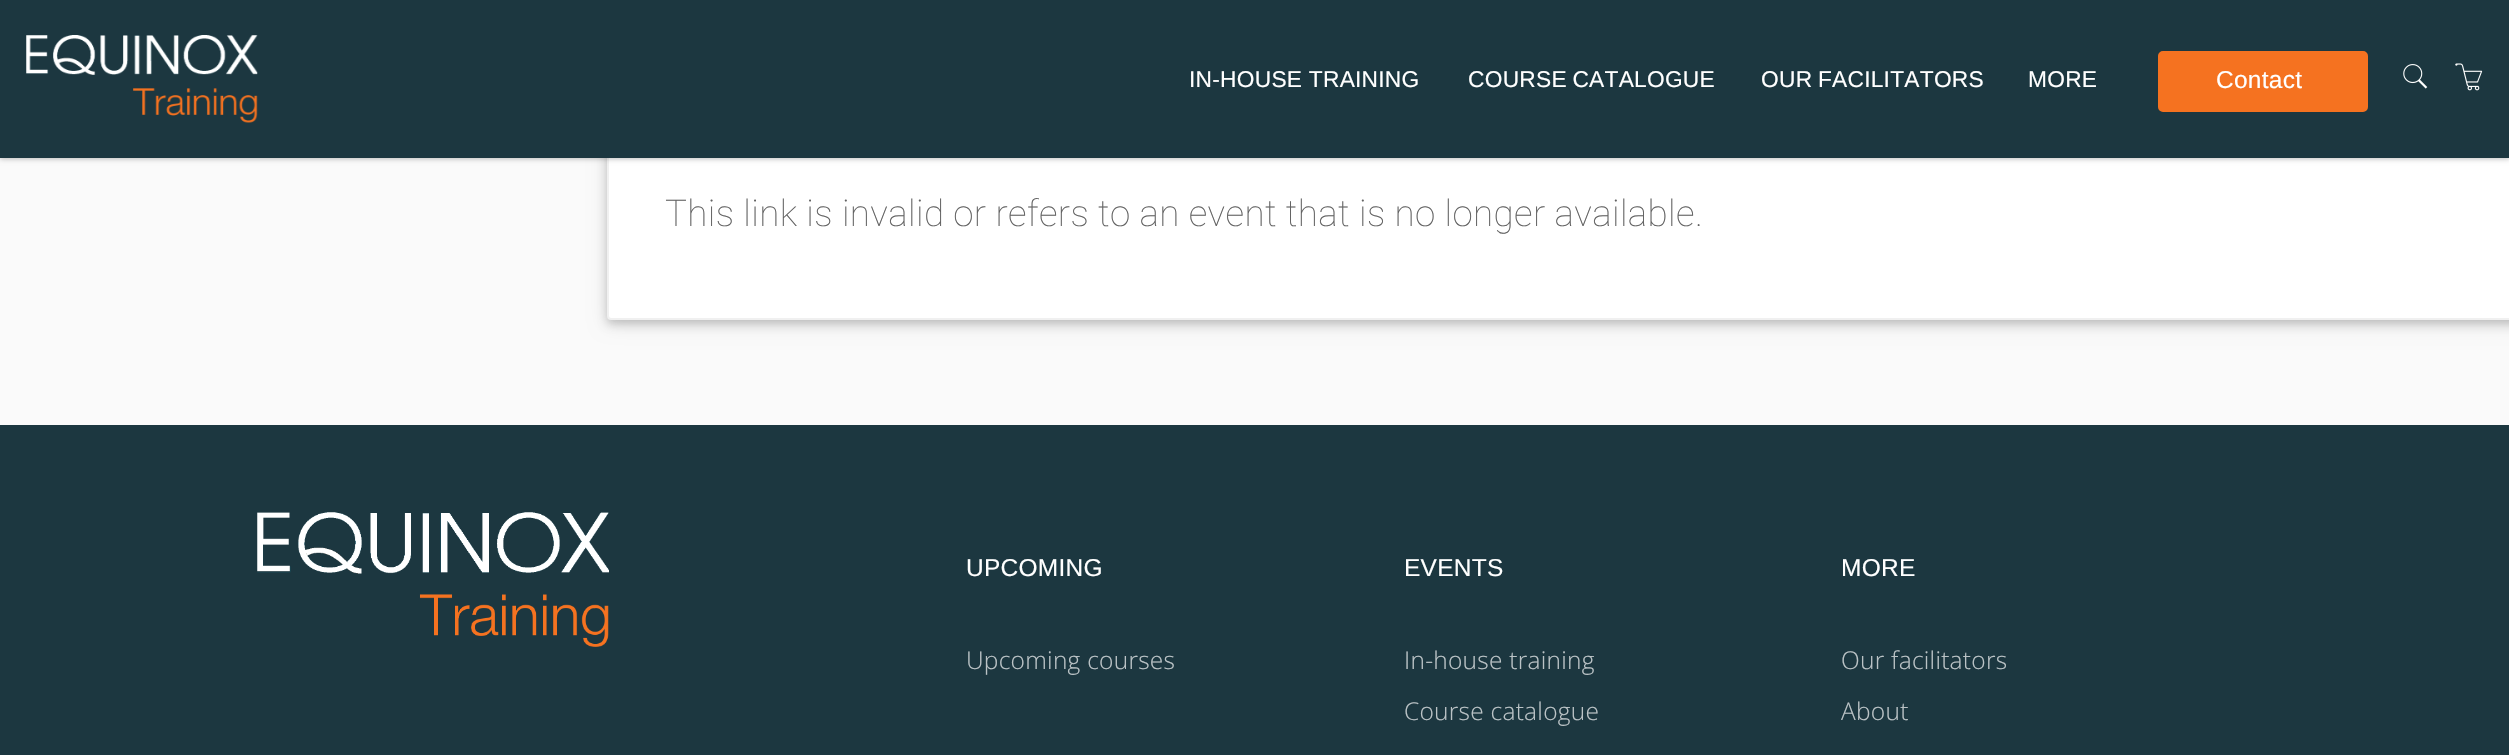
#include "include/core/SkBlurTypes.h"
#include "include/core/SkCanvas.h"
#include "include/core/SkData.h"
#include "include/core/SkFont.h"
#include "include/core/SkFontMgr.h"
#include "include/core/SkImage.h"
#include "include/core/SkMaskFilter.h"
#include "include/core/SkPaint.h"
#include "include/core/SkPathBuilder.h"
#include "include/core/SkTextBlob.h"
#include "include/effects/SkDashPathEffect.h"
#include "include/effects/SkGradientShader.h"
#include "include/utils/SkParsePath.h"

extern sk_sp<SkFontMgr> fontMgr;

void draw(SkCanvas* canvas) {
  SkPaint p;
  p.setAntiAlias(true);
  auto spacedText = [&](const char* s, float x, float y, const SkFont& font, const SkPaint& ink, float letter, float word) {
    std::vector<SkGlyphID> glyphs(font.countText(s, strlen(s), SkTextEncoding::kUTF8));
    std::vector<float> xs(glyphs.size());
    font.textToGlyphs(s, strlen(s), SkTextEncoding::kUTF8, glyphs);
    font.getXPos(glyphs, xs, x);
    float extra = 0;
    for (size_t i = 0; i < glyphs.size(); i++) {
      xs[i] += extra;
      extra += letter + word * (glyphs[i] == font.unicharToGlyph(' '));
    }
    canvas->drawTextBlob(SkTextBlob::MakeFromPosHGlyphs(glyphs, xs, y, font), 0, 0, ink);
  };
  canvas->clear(SkColorSetRGB(250, 250, 250));
  p.setColor(SkColorSetARGB(31, 0, 0, 0));
  p.setMaskFilter(SkMaskFilter::MakeBlur(kNormal_SkBlurStyle, 9));
  canvas->drawRoundRect(SkRect::MakeLTRB(607, -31, 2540, 324), 4, 4, p);
  p.setMaskFilter(nullptr);
  p.setColor(SkColorSetARGB(41, 0, 0, 0));
  p.setMaskFilter(SkMaskFilter::MakeBlur(kNormal_SkBlurStyle, 4.5f));
  canvas->drawRoundRect(SkRect::MakeLTRB(607, -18, 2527, 324), 4, 4, p);
  p.setMaskFilter(nullptr);
  p.setColor(SK_ColorWHITE);
  canvas->drawRoundRect(SkRect::MakeLTRB(608, -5, 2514, 319), 3, 3, p);
  p.setStyle(SkPaint::kStroke_Style);
  p.setStrokeWidth(2);
  p.setColor(SkColorSetRGB(240, 240, 240));
  canvas->drawRoundRect(SkRect::MakeLTRB(608, -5, 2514, 319), 3, 3, p);
  p.setStyle(SkPaint::kFill_Style);
  p.setColor(SkColorSetARGB(64, 0, 0, 0));
  p.setMaskFilter(SkMaskFilter::MakeBlur(kNormal_SkBlurStyle, 2.5f));
  canvas->drawRect(SkRect::MakeLTRB(0, 2, 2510, 159), p);
  p.setMaskFilter(nullptr);
  p.setColor(SkColorSetRGB(28, 55, 64));
  canvas->drawRect(SkRect::MakeLTRB(0, 0, 2509, 158), p);
  canvas->drawImageRect(SkImages::DeferredFromEncodedData(SkData::MakeFromFileName("images/1.png")), SkRect::MakeLTRB(26, 35, 258, 123), SkSamplingOptions());
  p.setColor(SkColorSetRGB(245, 114, 32));
  canvas->drawRoundRect(SkRect::MakeLTRB(2159, 52, 2367, 111), 4, 4, p);
  p.setStyle(SkPaint::kStroke_Style);
  canvas->drawRoundRect(SkRect::MakeLTRB(2159, 52, 2367, 111), 4, 4, p);
  canvas->drawImageRect(SkImages::DeferredFromEncodedData(SkData::MakeFromFileName("images/2.png")), SkRect::MakeLTRB(2403, 64, 2428, 89), SkSamplingOptions());
  canvas->drawImageRect(SkImages::DeferredFromEncodedData(SkData::MakeFromFileName("images/3.png")), SkRect::MakeLTRB(2455, 63, 2483, 91), SkSamplingOptions());
  p.setStyle(SkPaint::kFill_Style);
  p.setColor(SkColorSetRGB(28, 55, 64));
  canvas->drawRect(SkRect::MakeLTRB(0, 425, 2509, 755), p);
  canvas->drawImageRect(SkImages::DeferredFromEncodedData(SkData::MakeFromFileName("images/4.png")), SkRect::MakeLTRB(257, 512, 609, 647), SkSamplingOptions());
  SkFont font1(fontMgr->matchFamilyStyle("Liberation Sans", SkFontStyle::Normal()), 22.75f);
  font1.setSubpixel(true);
  p.setColor(SK_ColorWHITE);
  spacedText("IN-HOUSE TRAINING", 1189, 87, font1, p, 0.25f, 0);
  spacedText("COURSE CATALOGUE", 1468, 87, font1, p, 0.25f, -1);
  spacedText("OUR FACILITATORS", 1761, 87, font1, p, 0.25f, -1);
  spacedText("MORE", 2028, 87, font1, p, 0.25f, 0);
  SkFont font2(fontMgr->matchFamilyStyle("Liberation Sans", SkFontStyle::Normal()), 24.5f);
  font2.setSubpixel(true);
  spacedText("Contact", 2216, 88, font2, p, 0.25f, 0);
  SkFont font3(fontMgr->matchFamilyStyle("Roboto", SkFontStyle(100, SkFontStyle::kNormal_Width, SkFontStyle::kUpright_Slant)), 36.75f);
  font3.setSubpixel(true);
  p.setColor(SkColorSetRGB(98, 98, 98));
  spacedText("This link is invalid or refers to an event that is no longer available.", 665, 226, font3, p, 0.37f, -0.25f);
  p.setColor(SK_ColorWHITE);
  spacedText("UPCOMING", 966, 576, font2, p, 0.25f, 0);
  SkFont font4(fontMgr->matchFamilyStyle("Open Sans", SkFontStyle(300, SkFontStyle::kNormal_Width, SkFontStyle::kUpright_Slant)), 24.5f);
  font4.setSubpixel(true);
  p.setColor(SkColorSetRGB(187, 195, 198));
  spacedText("Upcoming courses", 966, 669, font4, p, 0.25f, 0);
  p.setColor(SK_ColorWHITE);
  spacedText("EVENTS", 1404, 576, font2, p, 0.25f, 0);
  p.setColor(SkColorSetRGB(187, 195, 198));
  spacedText("In-house training", 1404, 669, font4, p, 0.25f, 0);
  spacedText("Course catalogue", 1404, 720, font4, p, 0.25f, 0);
  p.setColor(SK_ColorWHITE);
  spacedText("MORE", 1841, 576, font2, p, 0.25f, 0);
  p.setColor(SkColorSetRGB(187, 195, 198));
  spacedText("Our facilitators", 1841, 669, font4, p, 0.25f, 0);
  spacedText("About", 1841, 720, font4, p, 0.25f, 0);
}
